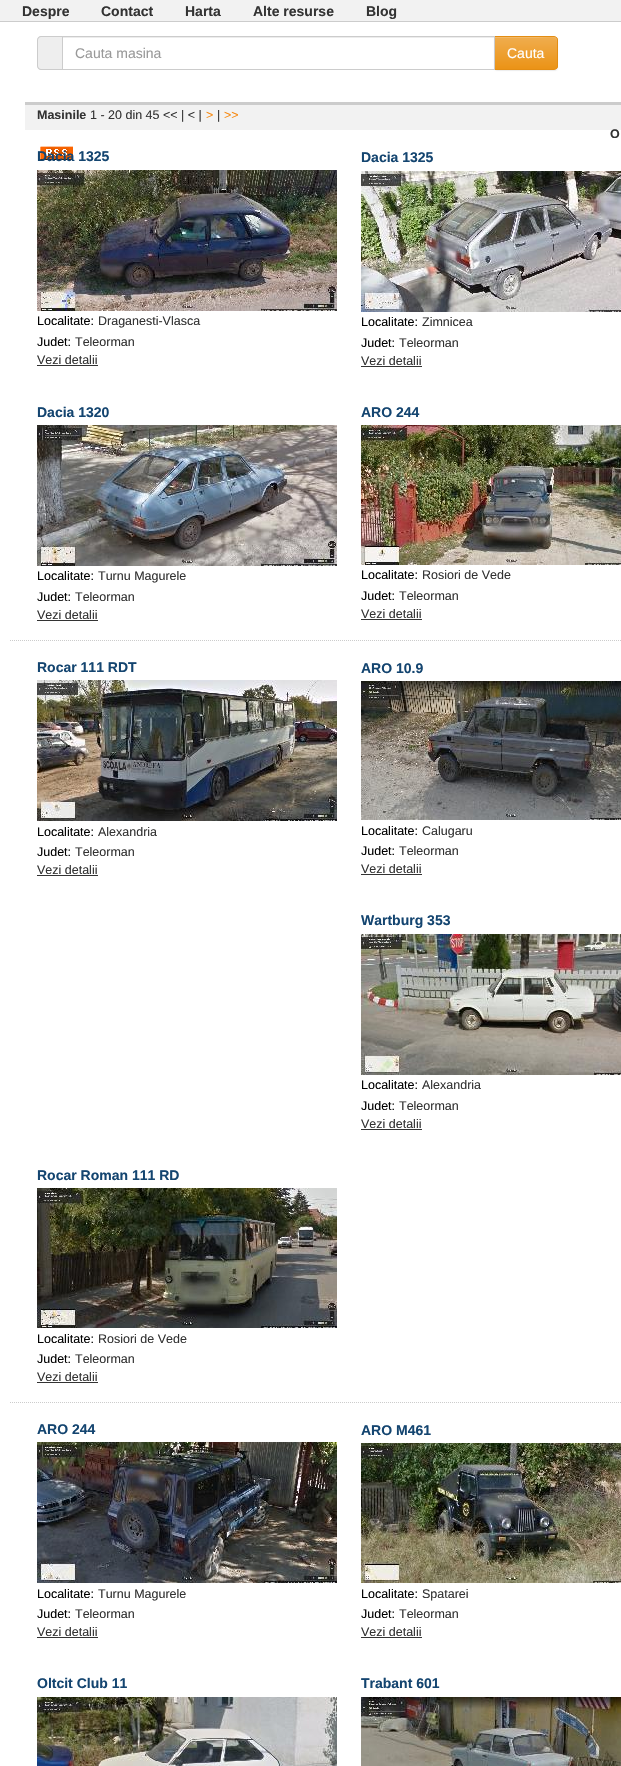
#include "include/core/SkBlurTypes.h"
#include "include/core/SkCanvas.h"
#include "include/core/SkData.h"
#include "include/core/SkFont.h"
#include "include/core/SkFontMgr.h"
#include "include/core/SkImage.h"
#include "include/core/SkMaskFilter.h"
#include "include/core/SkPaint.h"
#include "include/core/SkPathBuilder.h"
#include "include/core/SkTextBlob.h"
#include "include/effects/SkDashPathEffect.h"
#include "include/effects/SkGradientShader.h"
#include "include/utils/SkParsePath.h"

extern sk_sp<SkFontMgr> fontMgr;

void draw(SkCanvas* canvas) {
  SkPaint p;
  p.setAntiAlias(true);
  canvas->clear(SK_ColorWHITE);
  p.setColor(SkColorSetRGB(242, 242, 242));
  canvas->drawRect(SkRect::MakeLTRB(0, 0, 621, 21), p);
  p.setColor(SkColorSetRGB(204, 204, 204));
  canvas->drawRect(SkRect::MakeLTRB(0, 21, 621, 22), p);
  p.setColor(SkColorSetRGB(238, 238, 238));
  canvas->drawPath(SkPathBuilder().moveTo(41, 36).lineTo(62, 36).lineTo(62, 70).lineTo(41, 70).cubicTo(39, 70, 37, 68, 37, 66).lineTo(37, 40).cubicTo(37, 38, 39, 36, 41, 36).close().detach(), p);
  p.setColor(SkColorSetRGB(204, 204, 204));
  canvas->drawPath(SkPathBuilder(SkPathFillType::kEvenOdd).moveTo(41, 36).lineTo(62, 36).lineTo(62, 70).lineTo(41, 70).cubicTo(39, 70, 37, 68, 37, 66).lineTo(37, 40).cubicTo(37, 38, 39, 36, 41, 36).close().moveTo(41, 37).lineTo(62, 37).lineTo(62, 69).lineTo(41, 69).cubicTo(39.5f, 69, 38, 67.5f, 38, 66).lineTo(38, 40).cubicTo(38, 38.5f, 39.5f, 37, 41, 37).close().detach(), p);
  p.setColor(SkColorSetARGB(18, 0, 0, 0));
  p.setMaskFilter(SkMaskFilter::MakeBlur(kNormal_SkBlurStyle, 0.5f));
  canvas->drawRoundRect(SkRect::MakeLTRB(494, 37, 558, 71), 4, 4, p);
  p.setMaskFilter(nullptr);
  p.setColor(SkColorSetRGB(236, 236, 236));
  canvas->drawRect(SkRect::MakeLTRB(63, 37, 494, 38), p);
  canvas->save();
  canvas->clipPath(SkPathBuilder().moveTo(494, 36).lineTo(554, 36).cubicTo(556, 36, 558, 38, 558, 40).lineTo(558, 66).cubicTo(558, 68, 556, 70, 554, 70).lineTo(494, 70).close().detach(), true);
  {
    const SkColor colors[] = {SkColorSetRGB(240, 173, 78), SkColorSetRGB(235, 147, 22)};
    const float stops[] = {0, 1};
    const SkPoint ends[] = {{526, 37}, {526, 69}};
    p.setShader(SkGradientShader::MakeLinear(ends, colors, stops, 2, SkTileMode::kClamp));
    p.setAlpha(255);
  }
  canvas->drawRect(SkRect::MakeLTRB(495, 37, 558, 69), p);
  canvas->restore();
  p.setShader(nullptr);
  p.setColor(SkColorSetARGB(38, 255, 255, 255));
  canvas->drawPath(SkPathBuilder(SkPathFillType::kEvenOdd).moveTo(495, 38).lineTo(534, 38).cubicTo(548, 38, 553, 36, 556, 39).cubicTo(557, 40, 557, 41, 557, 44).lineTo(557, 40).cubicTo(557, 38, 556, 37, 554, 37).lineTo(495, 37).close().moveTo(557, 64).lineTo(557, 68).close().detach(), p);
  p.setStyle(SkPaint::kStroke_Style);
  p.setStrokeWidth(1);
  p.setColor(SkColorSetRGB(227, 141, 19));
  canvas->drawPath(SkPathBuilder().moveTo(494.5f, 36.5f).lineTo(554, 36.5f).cubicTo(556, 36.5f, 557.5f, 38, 557.5f, 40).lineTo(557.5f, 66).cubicTo(557.5f, 68, 556, 69.5f, 554, 69.5f).lineTo(494.5f, 69.5f).close().detach(), p);
  p.setColor(SkColorSetRGB(204, 204, 204));
  canvas->drawRect(SkRect::MakeLTRB(62.5f, 36.5f, 494.5f, 69.5f), p);
  p.setStyle(SkPaint::kFill_Style);
  p.setColor(SkColorSetRGB(242, 242, 242));
  canvas->drawRect(SkRect::MakeLTRB(25, 105, 621, 130), p);
  p.setColor(SkColorSetRGB(204, 204, 204));
  canvas->drawRect(SkRect::MakeLTRB(25, 102, 621, 105), p);
  canvas->drawImageRect(SkImages::DeferredFromEncodedData(SkData::MakeFromFileName("images/1.png")), SkRect::MakeLTRB(40, 146, 73, 160), SkSamplingOptions());
  p.setStyle(SkPaint::kStroke_Style);
  p.setPathEffect(SkDashPathEffect::Make({{1, 1}}, 0));
  canvas->drawPath(SkPathBuilder().moveTo(10, 640.5f).lineTo(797, 640.5f).detach(), p);
  p.setPathEffect(nullptr);
  canvas->drawImageRect(SkImages::DeferredFromEncodedData(SkData::MakeFromFileName("images/2.png")), SkRect::MakeLTRB(37, 170, 337, 311), SkSamplingOptions());
  p.setStyle(SkPaint::kFill_Style);
  p.setColor(SkColorSetRGB(51, 51, 51));
  canvas->drawRect(SkRect::MakeLTRB(37, 365, 98, 366), p);
  canvas->drawImageRect(SkImages::DeferredFromEncodedData(SkData::MakeFromFileName("images/3.png")), SkRect::MakeLTRB(361, 171, 621, 312), SkSamplingOptions());
  canvas->drawRect(SkRect::MakeLTRB(361, 366, 422, 367), p);
  canvas->drawImageRect(SkImages::DeferredFromEncodedData(SkData::MakeFromFileName("images/4.png")), SkRect::MakeLTRB(37, 425, 337, 566), SkSamplingOptions());
  canvas->drawRect(SkRect::MakeLTRB(37, 620, 98, 621), p);
  canvas->drawImageRect(SkImages::DeferredFromEncodedData(SkData::MakeFromFileName("images/5.png")), SkRect::MakeLTRB(361, 425, 621, 565), SkSamplingOptions());
  canvas->drawRect(SkRect::MakeLTRB(361, 619, 422, 620), p);
  p.setStyle(SkPaint::kStroke_Style);
  p.setColor(SkColorSetRGB(204, 204, 204));
  p.setPathEffect(SkDashPathEffect::Make({{1, 1}}, 0));
  canvas->drawPath(SkPathBuilder().moveTo(10, 1402.5f).lineTo(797, 1402.5f).detach(), p);
  p.setPathEffect(nullptr);
  canvas->drawImageRect(SkImages::DeferredFromEncodedData(SkData::MakeFromFileName("images/6.png")), SkRect::MakeLTRB(37, 680, 337, 821), SkSamplingOptions());
  p.setStyle(SkPaint::kFill_Style);
  p.setColor(SkColorSetRGB(51, 51, 51));
  canvas->drawRect(SkRect::MakeLTRB(37, 875, 98, 876), p);
  canvas->drawImageRect(SkImages::DeferredFromEncodedData(SkData::MakeFromFileName("images/7.png")), SkRect::MakeLTRB(361, 681, 621, 820), SkSamplingOptions());
  canvas->drawRect(SkRect::MakeLTRB(361, 874, 422, 875), p);
  canvas->drawImageRect(SkImages::DeferredFromEncodedData(SkData::MakeFromFileName("images/8.png")), SkRect::MakeLTRB(361, 934, 621, 1075), SkSamplingOptions());
  canvas->drawRect(SkRect::MakeLTRB(361, 1129, 422, 1130), p);
  canvas->drawImageRect(SkImages::DeferredFromEncodedData(SkData::MakeFromFileName("images/9.png")), SkRect::MakeLTRB(37, 1188, 337, 1328), SkSamplingOptions());
  canvas->drawRect(SkRect::MakeLTRB(37, 1382, 98, 1383), p);
  canvas->drawImageRect(SkImages::DeferredFromEncodedData(SkData::MakeFromFileName("images/10.png")), SkRect::MakeLTRB(37, 1442, 337, 1583), SkSamplingOptions());
  canvas->drawRect(SkRect::MakeLTRB(37, 1637, 98, 1638), p);
  canvas->drawImageRect(SkImages::DeferredFromEncodedData(SkData::MakeFromFileName("images/11.png")), SkRect::MakeLTRB(361, 1443, 621, 1583), SkSamplingOptions());
  canvas->drawRect(SkRect::MakeLTRB(361, 1637, 422, 1638), p);
  canvas->drawImageRect(SkImages::DeferredFromEncodedData(SkData::MakeFromFileName("images/12.png")), SkRect::MakeLTRB(37, 1697, 337, 1766), SkSamplingOptions());
  canvas->drawImageRect(SkImages::DeferredFromEncodedData(SkData::MakeFromFileName("images/13.png")), SkRect::MakeLTRB(361, 1697, 621, 1766), SkSamplingOptions());
  SkFont font1(fontMgr->matchFamilyStyle("Liberation Sans", SkFontStyle::Bold()), 14);
  font1.setSubpixel(true);
  canvas->drawString("Despre", 22, 16, font1, p);
  canvas->drawString("Contact", 101, 16, font1, p);
  canvas->drawString("Harta", 185, 16, font1, p);
  canvas->drawString("Alte resurse", 253, 16, font1, p);
  canvas->drawString("Blog", 366, 16, font1, p);
  SkFont font2(fontMgr->matchFamilyStyle("Liberation Sans", SkFontStyle::Normal()), 14);
  font2.setSubpixel(true);
  p.setColor(SkColorSetRGB(153, 153, 153));
  canvas->drawString("Cauta masina", 75, 58, font2, p);
  p.setColor(SK_ColorWHITE);
  canvas->drawString("Cauta", 507, 58, font2, p);
  SkFont font3(fontMgr->matchFamilyStyle("Liberation Sans", SkFontStyle::Bold()), 12.5f);
  font3.setSubpixel(true);
  p.setColor(SkColorSetRGB(51, 51, 51));
  canvas->drawString("Masinile", 37, 119, font3, p);
  SkFont font4(fontMgr->matchFamilyStyle("Liberation Sans", SkFontStyle::Normal()), 12.5f);
  font4.setSubpixel(true);
  canvas->drawString("1 - 20 din 45 << | < |", 90, 119, font4, p);
  p.setColor(SkColorSetRGB(247, 137, 16));
  canvas->drawString(">", 206, 119, font4, p);
  p.setColor(SkColorSetRGB(51, 51, 51));
  canvas->drawString("|", 217, 119, font4, p);
  p.setColor(SkColorSetRGB(247, 137, 16));
  canvas->drawString(">>", 224, 119, font4, p);
  p.setColor(SkColorSetRGB(51, 51, 51));
  canvas->drawString("O", 610, 138, font3, p);
  p.setColor(SkColorSetRGB(20, 69, 112));
  canvas->drawString("Dacia 1325", 37, 161, font1, p);
  p.setColor(SK_ColorBLACK);
  canvas->drawString("Localitate:", 37, 325, font4, p);
  p.setColor(SkColorSetRGB(51, 51, 51));
  canvas->drawString("Draganesti-Vlasca", 98, 325, font4, p);
  p.setColor(SK_ColorBLACK);
  canvas->drawString("Judet:", 37, 346, font4, p);
  p.setColor(SkColorSetRGB(51, 51, 51));
  canvas->drawString("Teleorman", 75, 346, font4, p);
  canvas->drawString("Vezi detalii", 37, 364, font4, p);
  p.setColor(SkColorSetRGB(20, 69, 112));
  canvas->drawString("Dacia 1325", 361, 162, font1, p);
  p.setColor(SK_ColorBLACK);
  canvas->drawString("Localitate:", 361, 326, font4, p);
  p.setColor(SkColorSetRGB(51, 51, 51));
  canvas->drawString("Zimnicea", 422, 326, font4, p);
  p.setColor(SK_ColorBLACK);
  canvas->drawString("Judet:", 361, 347, font4, p);
  p.setColor(SkColorSetRGB(51, 51, 51));
  canvas->drawString("Teleorman", 399, 347, font4, p);
  canvas->drawString("Vezi detalii", 361, 365, font4, p);
  p.setColor(SkColorSetRGB(20, 69, 112));
  canvas->drawString("Dacia 1320", 37, 417, font1, p);
  p.setColor(SK_ColorBLACK);
  canvas->drawString("Localitate:", 37, 580, font4, p);
  p.setColor(SkColorSetRGB(51, 51, 51));
  canvas->drawString("Turnu Magurele", 98, 580, font4, p);
  p.setColor(SK_ColorBLACK);
  canvas->drawString("Judet:", 37, 601, font4, p);
  p.setColor(SkColorSetRGB(51, 51, 51));
  canvas->drawString("Teleorman", 75, 601, font4, p);
  canvas->drawString("Vezi detalii", 37, 619, font4, p);
  p.setColor(SkColorSetRGB(20, 69, 112));
  canvas->drawString("ARO 244", 361, 417, font1, p);
  p.setColor(SK_ColorBLACK);
  canvas->drawString("Localitate:", 361, 579, font4, p);
  p.setColor(SkColorSetRGB(51, 51, 51));
  canvas->drawString("Rosiori de Vede", 422, 579, font4, p);
  p.setColor(SK_ColorBLACK);
  canvas->drawString("Judet:", 361, 600, font4, p);
  p.setColor(SkColorSetRGB(51, 51, 51));
  canvas->drawString("Teleorman", 399, 600, font4, p);
  canvas->drawString("Vezi detalii", 361, 618, font4, p);
  p.setColor(SkColorSetRGB(20, 69, 112));
  canvas->drawString("Rocar 111 RDT", 37, 672, font1, p);
  p.setColor(SK_ColorBLACK);
  canvas->drawString("Localitate:", 37, 836, font4, p);
  p.setColor(SkColorSetRGB(51, 51, 51));
  canvas->drawString("Alexandria", 98, 836, font4, p);
  p.setColor(SK_ColorBLACK);
  canvas->drawString("Judet:", 37, 856, font4, p);
  p.setColor(SkColorSetRGB(51, 51, 51));
  canvas->drawString("Teleorman", 75, 856, font4, p);
  canvas->drawString("Vezi detalii", 37, 874, font4, p);
  p.setColor(SkColorSetRGB(20, 69, 112));
  canvas->drawString("ARO 10.9", 361, 673, font1, p);
  p.setColor(SK_ColorBLACK);
  canvas->drawString("Localitate:", 361, 835, font4, p);
  p.setColor(SkColorSetRGB(51, 51, 51));
  canvas->drawString("Calugaru", 422, 835, font4, p);
  p.setColor(SK_ColorBLACK);
  canvas->drawString("Judet:", 361, 855, font4, p);
  p.setColor(SkColorSetRGB(51, 51, 51));
  canvas->drawString("Teleorman", 399, 855, font4, p);
  canvas->drawString("Vezi detalii", 361, 873, font4, p);
  p.setColor(SkColorSetRGB(20, 69, 112));
  canvas->drawString("Wartburg 353", 361, 925, font1, p);
  p.setColor(SK_ColorBLACK);
  canvas->drawString("Localitate:", 361, 1089, font4, p);
  p.setColor(SkColorSetRGB(51, 51, 51));
  canvas->drawString("Alexandria", 422, 1089, font4, p);
  p.setColor(SK_ColorBLACK);
  canvas->drawString("Judet:", 361, 1110, font4, p);
  p.setColor(SkColorSetRGB(51, 51, 51));
  canvas->drawString("Teleorman", 399, 1110, font4, p);
  canvas->drawString("Vezi detalii", 361, 1128, font4, p);
  p.setColor(SkColorSetRGB(20, 69, 112));
  canvas->drawString("Rocar Roman 111 RD", 37, 1180, font1, p);
  p.setColor(SK_ColorBLACK);
  canvas->drawString("Localitate:", 37, 1343, font4, p);
  p.setColor(SkColorSetRGB(51, 51, 51));
  canvas->drawString("Rosiori de Vede", 98, 1343, font4, p);
  p.setColor(SK_ColorBLACK);
  canvas->drawString("Judet:", 37, 1363, font4, p);
  p.setColor(SkColorSetRGB(51, 51, 51));
  canvas->drawString("Teleorman", 75, 1363, font4, p);
  canvas->drawString("Vezi detalii", 37, 1381, font4, p);
  p.setColor(SkColorSetRGB(20, 69, 112));
  canvas->drawString("ARO 244", 37, 1434, font1, p);
  p.setColor(SK_ColorBLACK);
  canvas->drawString("Localitate:", 37, 1598, font4, p);
  p.setColor(SkColorSetRGB(51, 51, 51));
  canvas->drawString("Turnu Magurele", 98, 1598, font4, p);
  p.setColor(SK_ColorBLACK);
  canvas->drawString("Judet:", 37, 1618, font4, p);
  p.setColor(SkColorSetRGB(51, 51, 51));
  canvas->drawString("Teleorman", 75, 1618, font4, p);
  canvas->drawString("Vezi detalii", 37, 1636, font4, p);
  p.setColor(SkColorSetRGB(20, 69, 112));
  canvas->drawString("ARO M461", 361, 1435, font1, p);
  p.setColor(SK_ColorBLACK);
  canvas->drawString("Localitate:", 361, 1598, font4, p);
  p.setColor(SkColorSetRGB(51, 51, 51));
  canvas->drawString("Spatarei", 422, 1598, font4, p);
  p.setColor(SK_ColorBLACK);
  canvas->drawString("Judet:", 361, 1618, font4, p);
  p.setColor(SkColorSetRGB(51, 51, 51));
  canvas->drawString("Teleorman", 399, 1618, font4, p);
  canvas->drawString("Vezi detalii", 361, 1636, font4, p);
  p.setColor(SkColorSetRGB(20, 69, 112));
  canvas->drawString("Oltcit Club 11", 37, 1688, font1, p);
  canvas->drawString("Trabant 601", 361, 1688, font1, p);
}
